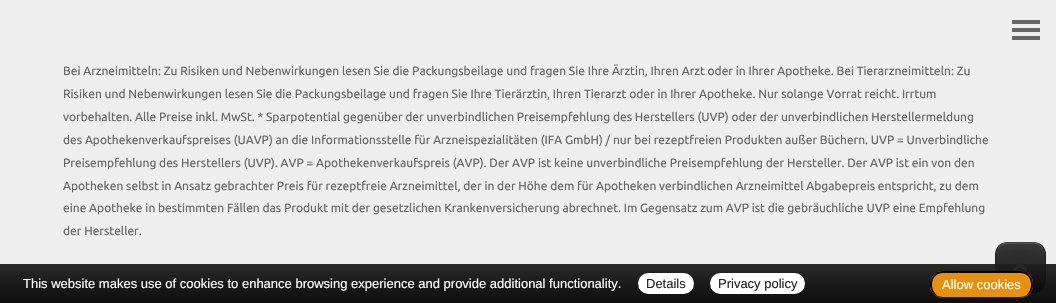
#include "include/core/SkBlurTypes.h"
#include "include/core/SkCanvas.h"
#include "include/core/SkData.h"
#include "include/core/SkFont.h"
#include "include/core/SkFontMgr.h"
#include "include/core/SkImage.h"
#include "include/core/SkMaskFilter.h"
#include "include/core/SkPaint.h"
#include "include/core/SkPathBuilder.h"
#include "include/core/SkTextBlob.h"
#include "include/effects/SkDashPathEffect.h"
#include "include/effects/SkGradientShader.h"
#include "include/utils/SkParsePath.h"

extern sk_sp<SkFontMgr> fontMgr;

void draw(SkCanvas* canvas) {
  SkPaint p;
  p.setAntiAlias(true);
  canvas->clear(SK_ColorWHITE);
  p.setColor(SkColorSetRGB(238, 238, 238));
  canvas->drawRect(SkRect::MakeLTRB(0, 0, 1056, 264), p);
  p.setColor(SkColorSetRGB(102, 102, 102));
  canvas->drawRect(SkRect::MakeLTRB(1012, 20, 1040, 24), p);
  canvas->drawRect(SkRect::MakeLTRB(1012, 28, 1040, 32), p);
  canvas->drawRect(SkRect::MakeLTRB(1012, 36, 1040, 40), p);
  canvas->drawImageRect(SkImages::DeferredFromEncodedData(SkData::MakeFromFileName("images/1.png")), SkRect::MakeLTRB(995, 242, 1046, 293), SkSamplingOptions());
  {
    const SkColor colors[] = {SkColorSetARGB(242, 30, 30, 30), SkColorSetARGB(242, 0, 0, 0)};
    const float stops[] = {0, 1};
    const SkPoint ends[] = {{528, 264}, {528, 303}};
    p.setShader(SkGradientShader::MakeLinear(ends, colors, stops, 2, SkTileMode::kClamp));
    p.setAlpha(255);
  }
  canvas->drawRect(SkRect::MakeLTRB(0, 264, 1056, 303), p);
  p.setShader(nullptr);
  p.setColor(SK_ColorWHITE);
  canvas->drawRoundRect(SkRect::MakeLTRB(638, 273, 694, 294), 10.5f, 10.5f, p);
  canvas->drawRoundRect(SkRect::MakeLTRB(710, 273, 805, 294), 10.5f, 10.5f, p);
  p.setColor(SkColorSetRGB(230, 144, 14));
  canvas->drawRoundRect(SkRect::MakeLTRB(930, 271, 1033, 298), 13, 13, p);
  p.setColor(SK_ColorBLACK);
  canvas->drawPath(SkPathBuilder().moveTo(943, 271).cubicTo(940, 271, 936, 272, 934, 275).lineTo(935, 276).cubicTo(937, 274, 940, 273, 943, 273).lineTo(1020, 273).cubicTo(1023, 273, 1026, 274, 1028, 276).lineTo(1029, 275).cubicTo(1027, 272, 1024, 271, 1020, 271).close().detach(), p);
  canvas->drawPath(SkPathBuilder().moveTo(1033, 285).cubicTo(1033, 281, 1032, 277.5f, 1029, 275).lineTo(1028, 276).cubicTo(1032.5f, 281, 1032, 290.5f, 1026.5f, 295).lineTo(1027.5f, 295.5f).cubicTo(1031, 293, 1033, 289, 1033, 285).close().detach(), p);
  p.setColor(SkColorSetRGB(34, 34, 34));
  canvas->drawPath(SkPathBuilder().moveTo(943, 298).lineTo(1020, 298).cubicTo(1023, 298, 1026, 297, 1028, 295).lineTo(1027, 295).cubicTo(1025, 296, 1022, 297, 1020, 297).lineTo(943, 297).cubicTo(941, 297, 938, 296, 936, 295).lineTo(935, 295).cubicTo(937, 297, 940, 298, 943, 298).close().detach(), p);
  p.setColor(SK_ColorBLACK);
  canvas->drawPath(SkPathBuilder().moveTo(930, 284).cubicTo(930, 288.5f, 931.5f, 292.5f, 935.5f, 295.5f).lineTo(936.5f, 295).cubicTo(931, 290.5f, 930.5f, 281, 935, 276).lineTo(934, 275).cubicTo(931.5f, 277, 930, 280.5f, 930, 284).close().detach(), p);
  SkFont font1(fontMgr->matchFamilyStyle("Ubuntu", SkFontStyle::Normal()), 12);
  font1.setSubpixel(true);
  p.setColor(SkColorSetRGB(102, 102, 102));
  canvas->drawString("Bei Arzneimitteln: Zu Risiken und Nebenwirkungen lesen Sie die Packungsbeilage und fragen Sie Ihre Ärztin, Ihren Arzt oder in Ihrer Apotheke. Bei Tierarzneimitteln: Zu", 63, 75, font1, p);
  canvas->drawString("Risiken und Nebenwirkungen lesen Sie die Packungsbeilage und fragen Sie Ihre Tierärztin, Ihren Tierarzt oder in Ihrer Apotheke. Nur solange Vorrat reicht. Irrtum", 63, 98, font1, p);
  canvas->drawString("vorbehalten. Alle Preise inkl. MwSt. * Sparpotential gegenüber der unverbindlichen Preisempfehlung des Herstellers (UVP) oder der unverbindlichen Herstellermeldung", 63, 121, font1, p);
  canvas->drawString("des Apothekenverkaufspreises (UAVP) an die Informationsstelle für Arzneispezialitäten (IFA GmbH) / nur bei rezeptfreien Produkten außer Büchern. UVP = Unverbindliche", 63, 144, font1, p);
  canvas->drawString("Preisempfehlung des Herstellers (UVP). AVP = Apothekenverkaufspreis (AVP). Der AVP ist keine unverbindliche Preisempfehlung der Hersteller. Der AVP ist ein von den", 63, 167, font1, p);
  canvas->drawString("Apotheken selbst in Ansatz gebrachter Preis für rezeptfreie Arzneimittel, der in der Höhe dem für Apotheken verbindlichen Arzneimittel Abgabepreis entspricht, zu dem", 63, 190, font1, p);
  canvas->drawString("eine Apotheke in bestimmten Fällen das Produkt mit der gesetzlichen Krankenversicherung abrechnet. Im Gegensatz zum AVP ist die gebräuchliche UVP eine Empfehlung", 63, 212, font1, p);
  canvas->drawString("der Hersteller.", 63, 235, font1, p);
  SkFont font2(fontMgr->matchFamilyStyle("Liberation Sans", SkFontStyle::Normal()), 13);
  font2.setSubpixel(true);
  p.setColor(SK_ColorWHITE);
  canvas->drawString("This website makes use of cookies to enhance browsing experience and provide additional functionality.", 23, 288, font2, p);
  p.setColor(SkColorSetRGB(34, 34, 34));
  canvas->drawString("Details", 646, 288, font2, p);
  canvas->drawString("Privacy policy", 718, 288, font2, p);
  p.setColor(SK_ColorWHITE);
  canvas->drawString("Allow cookies", 942, 289, font2, p);
}
